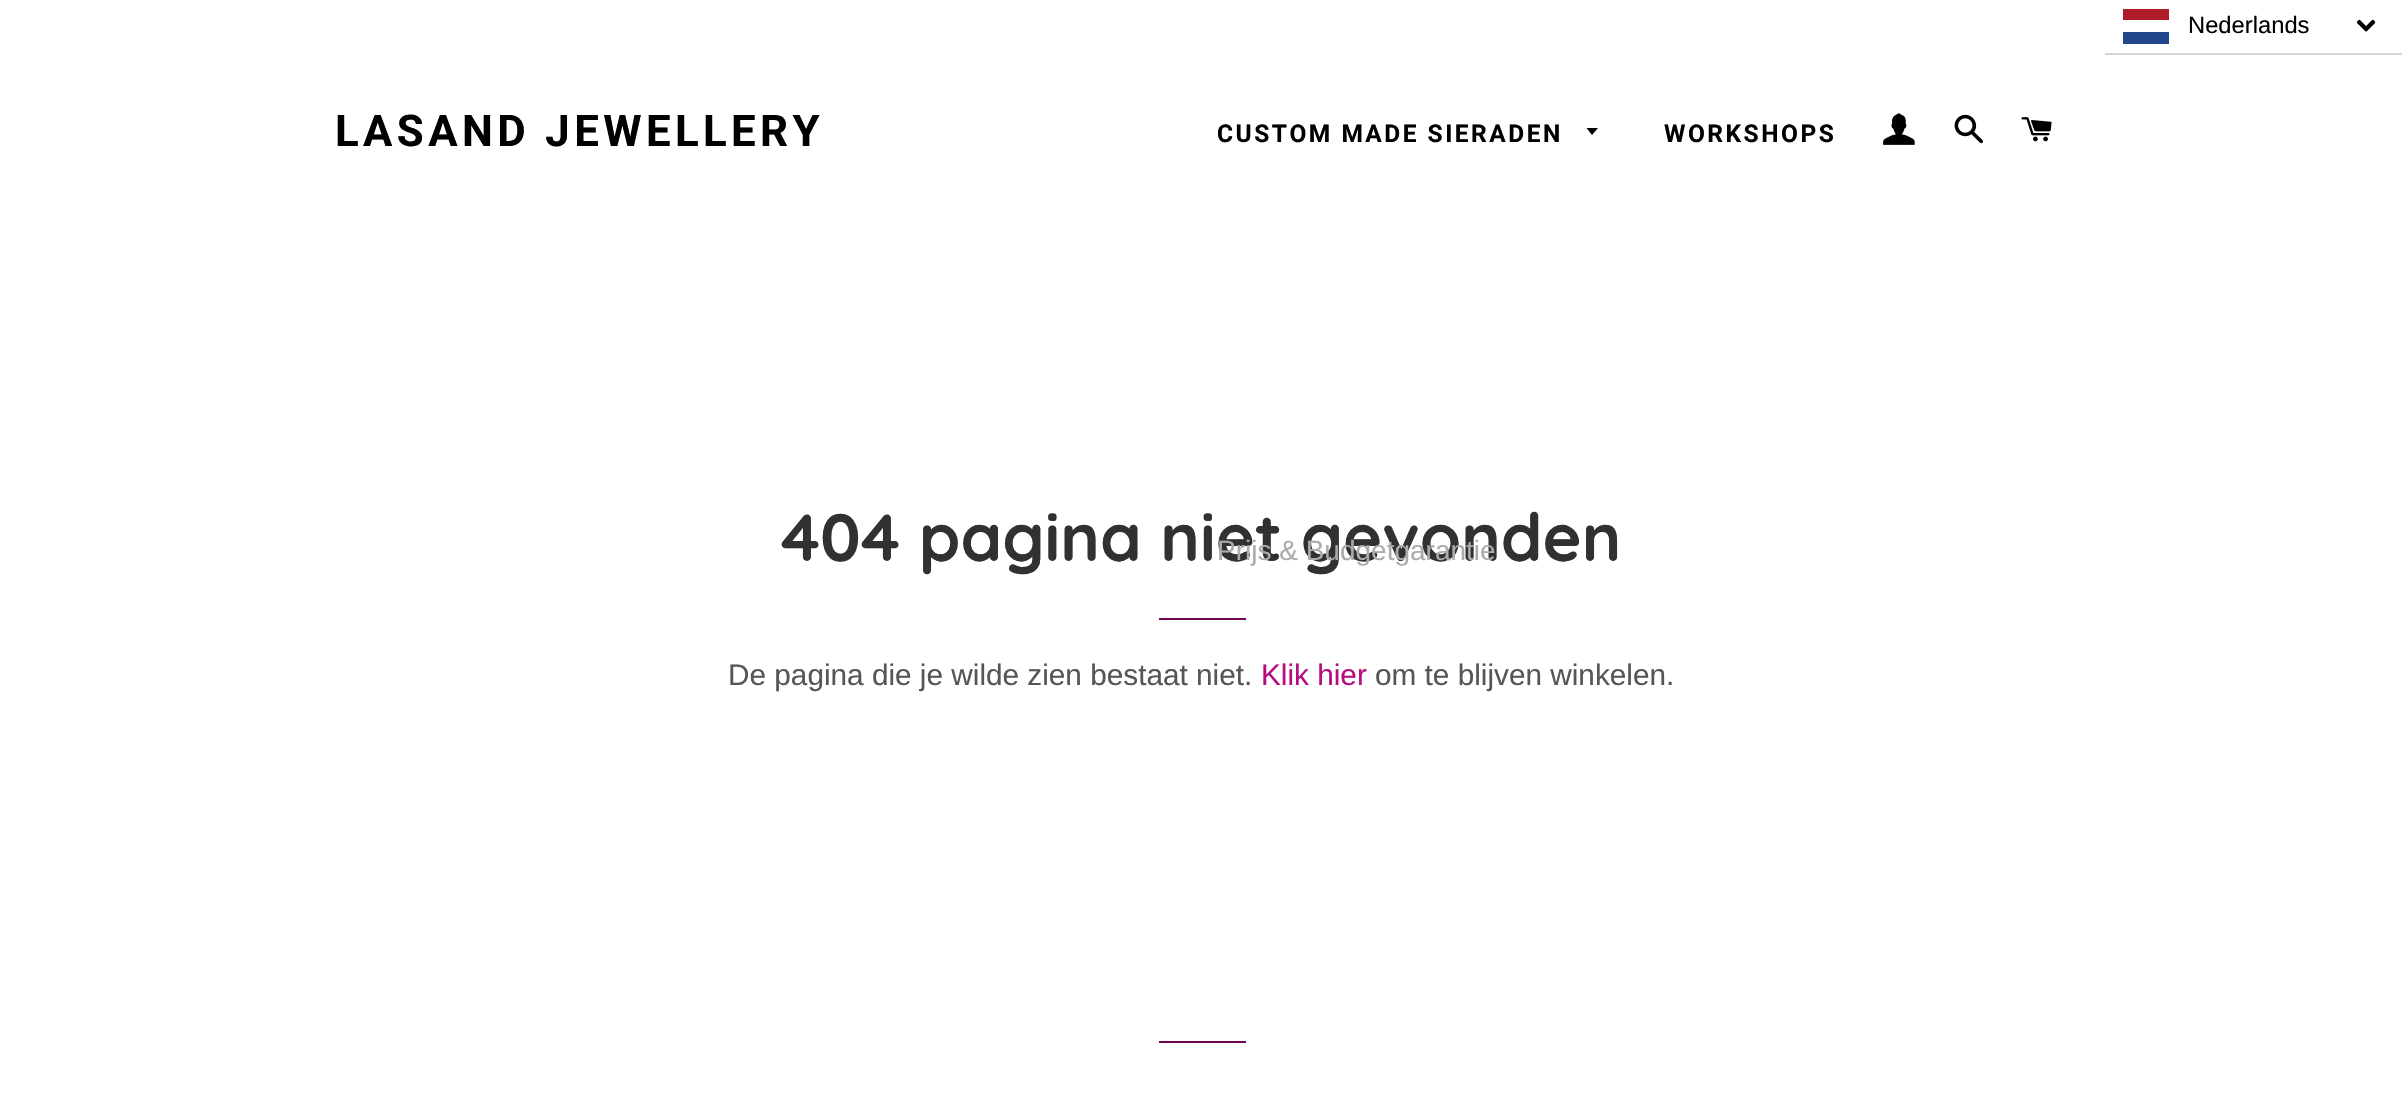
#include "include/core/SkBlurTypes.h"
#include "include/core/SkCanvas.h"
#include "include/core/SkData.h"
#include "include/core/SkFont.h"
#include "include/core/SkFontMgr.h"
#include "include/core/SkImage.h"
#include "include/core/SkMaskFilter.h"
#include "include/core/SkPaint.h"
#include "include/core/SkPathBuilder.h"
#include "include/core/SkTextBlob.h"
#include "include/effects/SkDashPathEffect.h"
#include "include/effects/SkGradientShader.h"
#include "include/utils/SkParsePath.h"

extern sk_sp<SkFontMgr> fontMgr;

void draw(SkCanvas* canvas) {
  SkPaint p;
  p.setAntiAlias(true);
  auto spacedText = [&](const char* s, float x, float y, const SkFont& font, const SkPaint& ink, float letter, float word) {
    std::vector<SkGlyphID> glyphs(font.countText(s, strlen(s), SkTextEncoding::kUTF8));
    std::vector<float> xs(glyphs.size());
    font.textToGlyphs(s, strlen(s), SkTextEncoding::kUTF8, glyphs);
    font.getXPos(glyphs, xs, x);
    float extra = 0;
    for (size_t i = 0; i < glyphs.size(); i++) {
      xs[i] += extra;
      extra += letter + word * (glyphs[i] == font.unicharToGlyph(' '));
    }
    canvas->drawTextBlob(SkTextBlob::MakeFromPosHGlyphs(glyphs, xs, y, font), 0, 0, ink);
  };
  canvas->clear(SK_ColorWHITE);
  p.setColor(SkColorSetRGB(33, 70, 139));
  canvas->drawRect(SkRect::MakeLTRB(2123, 32, 2169, 44), p);
  p.setColor(SkColorSetRGB(174, 28, 40));
  canvas->drawRect(SkRect::MakeLTRB(2123, 9, 2169, 20), p);
  p.setColor(SkColorSetRGB(212, 212, 212));
  canvas->drawRect(SkRect::MakeLTRB(2105, 53, 2402, 55), p);
  canvas->drawImageRect(SkImages::DeferredFromEncodedData(SkData::MakeFromFileName("images/1.png")), SkRect::MakeLTRB(2356, 19, 2376, 32), SkSamplingOptions());
  p.setColor(SK_ColorBLACK);
  canvas->drawPath(SkPathBuilder().moveTo(1586.5f, 128).lineTo(1592, 135).lineTo(1598, 128).close().detach(), p);
  canvas->drawImageRect(SkImages::DeferredFromEncodedData(SkData::MakeFromFileName("images/2.png")), SkRect::MakeLTRB(1883, 113, 1915, 145), SkSamplingOptions());
  canvas->drawImageRect(SkImages::DeferredFromEncodedData(SkData::MakeFromFileName("images/3.png")), SkRect::MakeLTRB(1954, 114, 1984, 144), SkSamplingOptions());
  canvas->drawImageRect(SkImages::DeferredFromEncodedData(SkData::MakeFromFileName("images/4.png")), SkRect::MakeLTRB(2021, 117, 2052, 142), SkSamplingOptions());
  p.setColor(SkColorSetRGB(112, 6, 79));
  canvas->drawRect(SkRect::MakeLTRB(1159, 618, 1246, 620), p);
  canvas->drawRect(SkRect::MakeLTRB(1159, 1041, 1246, 1043), p);
  SkFont font1(fontMgr->matchFamilyStyle("Liberation Sans", SkFontStyle::Normal()), 23.75f);
  font1.setSubpixel(true);
  p.setColor(SK_ColorBLACK);
  canvas->drawString("Nederlands", 2188, 33, font1, p);
  SkFont font2(fontMgr->matchFamilyStyle("Roboto", SkFontStyle::Bold()), 43.75f);
  font2.setSubpixel(true);
  spacedText("LASAND JEWELLERY", 335, 146, font2, p, 4.4f, 0);
  SkFont font3(fontMgr->matchFamilyStyle("Roboto", SkFontStyle::Bold()), 24.5f);
  font3.setSubpixel(true);
  spacedText("CUSTOM MADE SIERADEN", 1217, 142, font3, p, 2.5f, 0);
  spacedText("WORKSHOPS", 1664, 142, font3, p, 2.5f, 0);
  SkFont font4(fontMgr->matchFamilyStyle("Quicksand", SkFontStyle::Bold()), 66.5f);
  font4.setSubpixel(true);
  p.setColor(SkColorSetRGB(49, 49, 49));
  canvas->drawString("404 pagina niet gevonden", 781, 561, font4, p);
  SkFont font5(fontMgr->matchFamilyStyle("Liberation Sans", SkFontStyle::Normal()), 28);
  font5.setSubpixel(true);
  p.setColor(SkColorSetRGB(171, 171, 171));
  canvas->drawString("Prijs & Budgetgarantie", 1217, 560, font5, p);
  SkFont font6(fontMgr->matchFamilyStyle("Liberation Sans", SkFontStyle::Normal()), 29.75f);
  font6.setSubpixel(true);
  p.setColor(SkColorSetRGB(86, 86, 86));
  canvas->drawString("De pagina die je wilde zien bestaat niet.", 728, 685, font6, p);
  p.setColor(SkColorSetRGB(181, 12, 128));
  canvas->drawString("Klik hier", 1261, 685, font6, p);
  p.setColor(SkColorSetRGB(86, 86, 86));
  canvas->drawString("om te blijven winkelen.", 1375, 685, font6, p);
}
